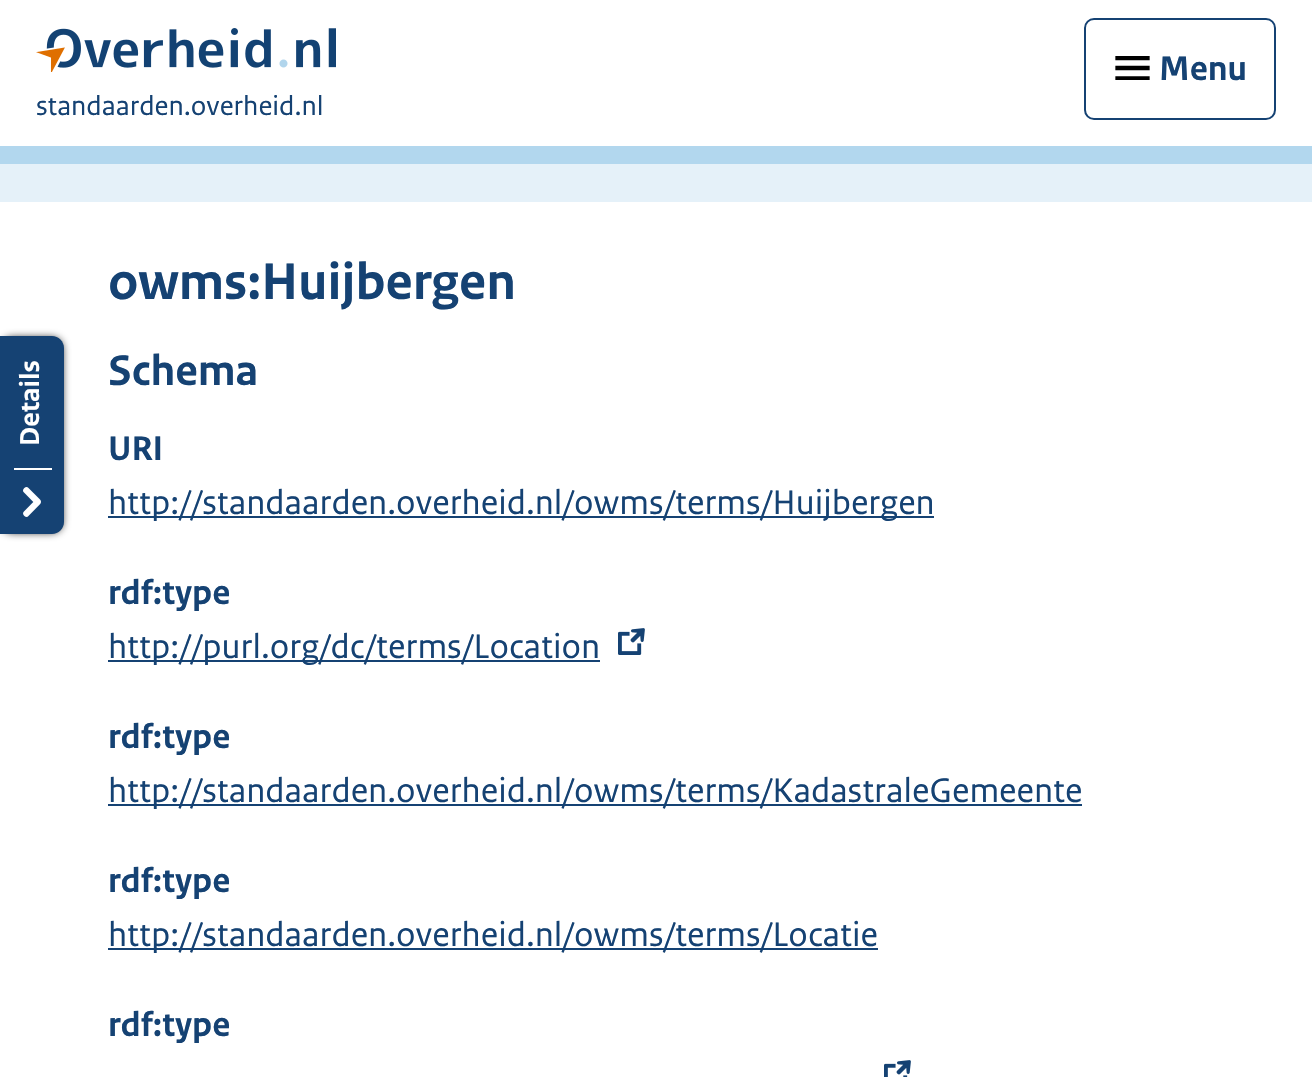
#include "include/core/SkBlurTypes.h"
#include "include/core/SkCanvas.h"
#include "include/core/SkData.h"
#include "include/core/SkFont.h"
#include "include/core/SkFontMgr.h"
#include "include/core/SkImage.h"
#include "include/core/SkMaskFilter.h"
#include "include/core/SkPaint.h"
#include "include/core/SkPathBuilder.h"
#include "include/core/SkTextBlob.h"
#include "include/effects/SkDashPathEffect.h"
#include "include/effects/SkGradientShader.h"
#include "include/utils/SkParsePath.h"

extern sk_sp<SkFontMgr> fontMgr;

void draw(SkCanvas* canvas) {
  SkPaint p;
  p.setAntiAlias(true);
  canvas->clear(SK_ColorWHITE);
  p.setColor(SkColorSetRGB(178, 215, 238));
  canvas->drawRect(SkRect::MakeLTRB(0, 146, 1312, 164), p);
  canvas->save();
  canvas->clipRect(SkRect::MakeLTRB(1114, 56, 1150, 80));
  p.setStyle(SkPaint::kStroke_Style);
  p.setStrokeWidth(4.3f);
  p.setStrokeCap(SkPaint::kSquare_Cap);
  p.setColor(SK_ColorBLACK);
  canvas->drawPath(SkPathBuilder().moveTo(1117.5f, 58).lineTo(1147.5f, 58).moveTo(1117.5f, 68).lineTo(1147.5f, 68).moveTo(1117.5f, 78.5f).lineTo(1147.5f, 78.5f).detach(), p);
  canvas->restore();
  p.setStrokeWidth(2);
  p.setStrokeCap(SkPaint::kButt_Cap);
  p.setColor(SkColorSetRGB(21, 66, 115));
  canvas->drawRoundRect(SkRect::MakeLTRB(1085, 19, 1275, 119), 9, 9, p);
  canvas->drawImageRect(SkImages::DeferredFromEncodedData(SkData::MakeFromFileName("images/1.png")), SkRect::MakeLTRB(36, 28, 336, 72), SkSamplingOptions());
  p.setStyle(SkPaint::kFill_Style);
  p.setColor(SkColorSetRGB(229, 241, 249));
  canvas->drawRect(SkRect::MakeLTRB(0, 164, 1312, 202), p);
  p.setColor(SK_ColorBLACK);
  p.setMaskFilter(SkMaskFilter::MakeBlur(kNormal_SkBlurStyle, 4));
  canvas->drawRoundRect(SkRect::MakeLTRB(2, 338, 62, 532), 10, 10, p);
  p.setMaskFilter(nullptr);
  p.setColor(SkColorSetRGB(21, 66, 115));
  canvas->drawPath(SkPathBuilder().moveTo(0, 336).lineTo(52, 336).cubicTo(58.5f, 336, 64, 341.5f, 64, 348).lineTo(64, 522).cubicTo(64, 528.5f, 58.5f, 534, 52, 534).lineTo(0, 534).close().detach(), p);
  canvas->drawImageRect(SkImages::DeferredFromEncodedData(SkData::MakeFromFileName("images/2.png")), SkRect::MakeLTRB(23, 487, 41, 517), SkSamplingOptions());
  p.setColor(SK_ColorWHITE);
  canvas->drawRect(SkRect::MakeLTRB(14, 468, 52, 470), p);
  p.setColor(SkColorSetRGB(21, 66, 115));
  canvas->drawRect(SkRect::MakeLTRB(108, 516, 934, 518), p);
  canvas->drawRect(SkRect::MakeLTRB(108, 660, 600, 662), p);
  canvas->drawImageRect(SkImages::DeferredFromEncodedData(SkData::MakeFromFileName("images/3.png")), SkRect::MakeLTRB(618, 628, 645, 655), SkSamplingOptions());
  canvas->drawRect(SkRect::MakeLTRB(108, 804, 1082, 806), p);
  canvas->drawRect(SkRect::MakeLTRB(108, 948, 878, 950), p);
  canvas->drawImageRect(SkImages::DeferredFromEncodedData(SkData::MakeFromFileName("images/4.png")), SkRect::MakeLTRB(884, 1060, 911, 1077), SkSamplingOptions());
  SkFont font1(fontMgr->matchFamilyStyle("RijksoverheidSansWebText", SkFontStyle::Bold()), 36);
  font1.setSubpixel(true);
  canvas->drawString("Menu", 1159, 80, font1, p);
  SkFont font2(fontMgr->matchFamilyStyle("RijksoverheidSansWebText", SkFontStyle::Normal()), 28.75f);
  font2.setSubpixel(true);
  canvas->drawString("standaarden.overheid.nl", 36, 115, font2, p);
  SkFont font3(fontMgr->matchFamilyStyle("RijksoverheidSansWebText", SkFontStyle::Bold()), 28.75f);
  font3.setSubpixel(true);
  p.setColor(SK_ColorWHITE);
  canvas->save();
  canvas->rotate(-90, 39, 446);
  canvas->drawString("Details", 39, 446, font3, p);
  canvas->restore();
  SkFont font4(fontMgr->matchFamilyStyle("RijksoverheidSansWebText", SkFontStyle::Bold()), 54);
  font4.setSubpixel(true);
  p.setColor(SkColorSetRGB(21, 66, 115));
  canvas->drawString("owms:Huijbergen", 108, 299, font4, p);
  SkFont font5(fontMgr->matchFamilyStyle("RijksoverheidSansWebText", SkFontStyle::Bold()), 45);
  font5.setSubpixel(true);
  canvas->drawString("Schema", 108, 385, font5, p);
  canvas->drawString("URI", 108, 460, font1, p);
  SkFont font6(fontMgr->matchFamilyStyle("RijksoverheidSansWebText", SkFontStyle::Normal()), 36);
  font6.setSubpixel(true);
  canvas->drawString("http://standaarden.overheid.nl/owms/terms/Huijbergen", 108, 514, font6, p);
  canvas->drawString("rdf:type", 108, 604, font1, p);
  canvas->drawString("http://purl.org/dc/terms/Location", 108, 658, font6, p);
  canvas->drawString("rdf:type", 108, 748, font1, p);
  canvas->drawString("http://standaarden.overheid.nl/owms/terms/KadastraleGemeente", 108, 802, font6, p);
  canvas->drawString("rdf:type", 108, 892, font1, p);
  canvas->drawString("http://standaarden.overheid.nl/owms/terms/Locatie", 108, 946, font6, p);
  canvas->drawString("rdf:type", 108, 1036, font1, p);
}
